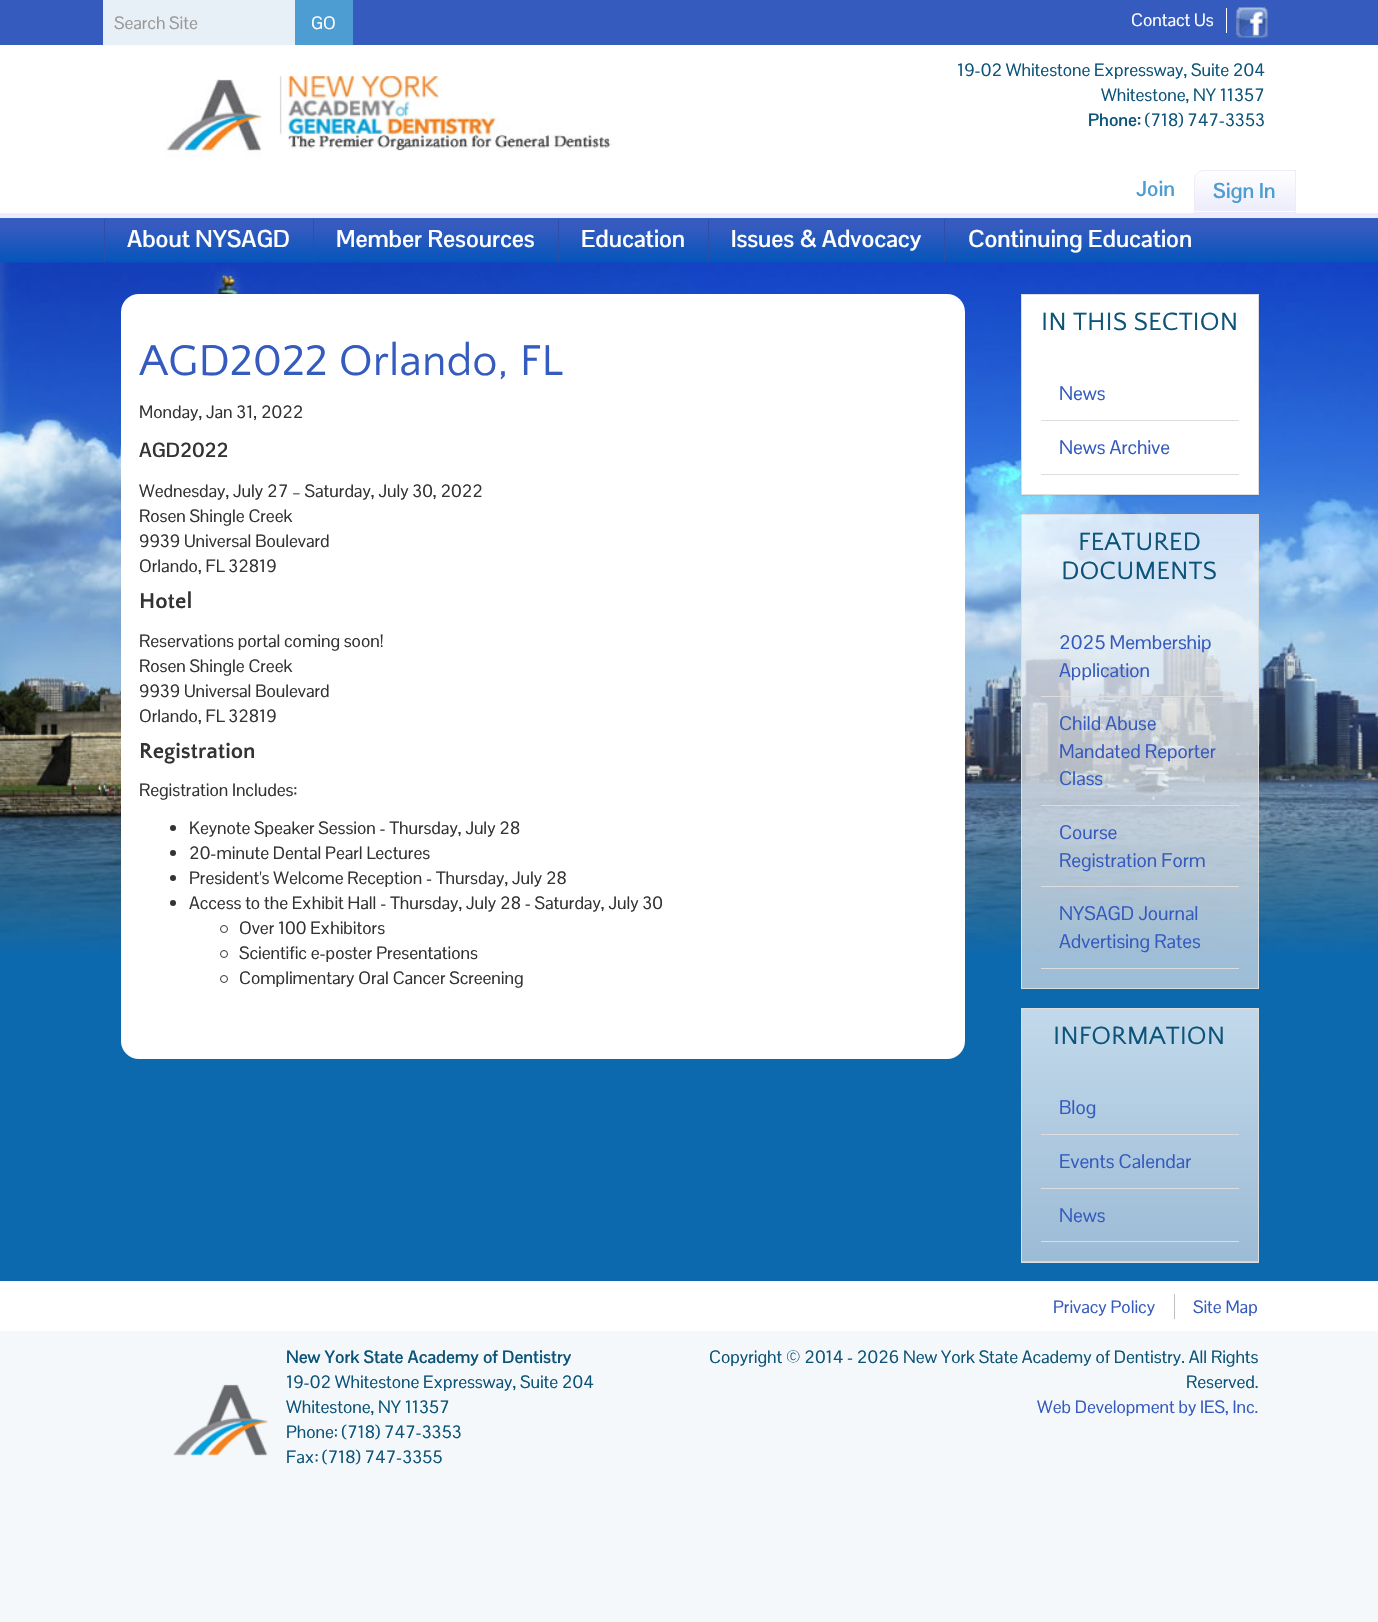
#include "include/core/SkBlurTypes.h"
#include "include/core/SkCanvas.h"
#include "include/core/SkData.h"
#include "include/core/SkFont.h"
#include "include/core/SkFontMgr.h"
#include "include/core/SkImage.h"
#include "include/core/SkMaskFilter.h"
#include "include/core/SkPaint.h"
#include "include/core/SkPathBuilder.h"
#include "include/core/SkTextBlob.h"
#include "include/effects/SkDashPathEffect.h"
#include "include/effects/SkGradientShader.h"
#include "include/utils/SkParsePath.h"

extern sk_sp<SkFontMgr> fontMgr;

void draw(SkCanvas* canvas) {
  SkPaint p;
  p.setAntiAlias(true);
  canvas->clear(SkColorSetRGB(244, 248, 251));
  p.setColor(SkColorSetRGB(53, 91, 191));
  canvas->drawRect(SkRect::MakeLTRB(0, 0, 1378, 45), p);
  p.setColor(SkColorSetRGB(232, 240, 247));
  canvas->drawRect(SkRect::MakeLTRB(103, 0, 295, 45), p);
  p.setColor(SkColorSetRGB(77, 156, 210));
  canvas->drawRect(SkRect::MakeLTRB(295, 0, 353, 45), p);
  p.setColor(SK_ColorWHITE);
  canvas->drawRect(SkRect::MakeLTRB(1226, 8, 1227, 33), p);
  canvas->drawImageRect(SkImages::DeferredFromEncodedData(SkData::MakeFromFileName("images/1.png")), SkRect::MakeLTRB(1236, 7, 1272, 38), SkSamplingOptions());
  canvas->drawRect(SkRect::MakeLTRB(0, 45, 1378, 213), p);
  p.setColor(SkColorSetRGB(236, 236, 251));
  canvas->drawRect(SkRect::MakeLTRB(0, 213, 1378, 218), p);
  canvas->drawImageRect(SkImages::DeferredFromEncodedData(SkData::MakeFromFileName("images/2.png")), SkRect::MakeLTRB(279, 76, 612, 151), SkSamplingOptions());
  canvas->drawImageRect(SkImages::DeferredFromEncodedData(SkData::MakeFromFileName("images/3.png")), SkRect::MakeLTRB(165, 79, 262, 158), SkSamplingOptions());
  canvas->save();
  canvas->clipPath(SkPathBuilder().moveTo(1204, 170).lineTo(1296, 170).lineTo(1296, 213).lineTo(1194, 213).lineTo(1194, 180).cubicTo(1194, 174.5f, 1198.5f, 170, 1204, 170).close().detach(), true);
  {
    const SkColor colors[] = {SK_ColorWHITE, SkColorSetRGB(236, 236, 251)};
    const float stops[] = {0, 1};
    const SkPoint ends[] = {{1245, 171}, {1245, 211}};
    p.setShader(SkGradientShader::MakeLinear(ends, colors, stops, 2, SkTileMode::kClamp));
    p.setAlpha(255);
  }
  canvas->drawRect(SkRect::MakeLTRB(1194, 171, 1295, 211), p);
  canvas->restore();
  p.setStyle(SkPaint::kStroke_Style);
  p.setStrokeWidth(1);
  p.setShader(nullptr);
  p.setColor(SkColorSetRGB(236, 236, 251));
  canvas->drawPath(SkPathBuilder().moveTo(1204, 170.5f).lineTo(1295.5f, 170.5f).lineTo(1295.5f, 212.5f).lineTo(1194.5f, 212.5f).lineTo(1194.5f, 180).cubicTo(1194.5f, 175, 1199, 170.5f, 1204, 170.5f).close().detach(), p);
  p.setStyle(SkPaint::kFill_Style);
  {
    const SkColor colors[] = {SkColorSetRGB(69, 106, 203), SkColorSetRGB(53, 91, 191), SkColorSetRGB(53, 91, 191), SkColorSetRGB(3, 85, 187)};
    const float stops[] = {0, 0.05f, 0.22f, 1};
    const SkPoint ends[] = {{689, 217}, {689, 263}};
    p.setShader(SkGradientShader::MakeLinear(ends, colors, stops, 4, SkTileMode::kClamp));
    p.setAlpha(255);
  }
  canvas->drawRect(SkRect::MakeLTRB(0, 218, 1378, 263), p);
  p.setShader(nullptr);
  p.setColor(SkColorSetRGB(46, 79, 167));
  canvas->drawRect(SkRect::MakeLTRB(104, 219, 105, 261), p);
  canvas->drawRect(SkRect::MakeLTRB(313, 219, 314, 261), p);
  canvas->drawRect(SkRect::MakeLTRB(558, 219, 559, 261), p);
  canvas->drawRect(SkRect::MakeLTRB(708, 219, 709, 261), p);
  canvas->drawRect(SkRect::MakeLTRB(944, 219, 945, 261), p);
  p.setColor(SkColorSetRGB(13, 105, 174));
  canvas->drawRect(SkRect::MakeLTRB(0, 952, 1378, 1281), p);
  canvas->drawImageRect(SkImages::DeferredFromEncodedData(SkData::MakeFromFileName("images/4.png")), SkRect::MakeLTRB(0, 262, 1378, 263), SkSamplingOptions());
  canvas->drawImageRect(SkImages::DeferredFromEncodedData(SkData::MakeFromFileName("images/5.png")), SkRect::MakeLTRB(0, 262, 690, 952), SkSamplingOptions());
  canvas->drawImageRect(SkImages::DeferredFromEncodedData(SkData::MakeFromFileName("images/6.png")), SkRect::MakeLTRB(690, 262, 1378, 952), SkSamplingOptions());
  p.setColor(SK_ColorWHITE);
  canvas->drawRoundRect(SkRect::MakeLTRB(121, 294, 965, 1059), 18, 18, p);
  p.setColor(SkColorSetRGB(51, 51, 51));
  canvas->drawCircle(173, 828, 3, p);
  canvas->drawCircle(173, 853, 3, p);
  canvas->drawCircle(173, 878, 3, p);
  canvas->drawCircle(173, 903, 3, p);
  p.setStyle(SkPaint::kStroke_Style);
  canvas->drawCircle(224, 929, 3.5f, p);
  canvas->drawCircle(224, 954, 3.5f, p);
  canvas->drawCircle(224, 979, 3.5f, p);
  p.setStyle(SkPaint::kFill_Style);
  p.setColor(SkColorSetARGB(13, 0, 0, 0));
  p.setMaskFilter(SkMaskFilter::MakeBlur(kNormal_SkBlurStyle, 0.5f));
  canvas->drawRect(SkRect::MakeLTRB(1021, 295, 1259, 496), p);
  p.setMaskFilter(nullptr);
  p.setColor(SK_ColorWHITE);
  canvas->drawRect(SkRect::MakeLTRB(1021.5f, 294.5f, 1258.5f, 494.5f), p);
  p.setStyle(SkPaint::kStroke_Style);
  p.setColor(SkColorSetRGB(221, 221, 221));
  canvas->drawRect(SkRect::MakeLTRB(1021.5f, 294.5f, 1258.5f, 494.5f), p);
  p.setStyle(SkPaint::kFill_Style);
  canvas->drawRect(SkRect::MakeLTRB(1041, 420, 1239, 421), p);
  canvas->drawRect(SkRect::MakeLTRB(1041, 474, 1239, 475), p);
  {
    const SkColor colors[] = {SkColorSetARGB(191, 255, 255, 255), SkColorSetARGB(191, 204, 215, 226)};
    const float stops[] = {0, 1};
    const SkPoint ends[] = {{1140, 515}, {1140, 988}};
    p.setShader(SkGradientShader::MakeLinear(ends, colors, stops, 2, SkTileMode::kClamp));
    p.setAlpha(255);
  }
  canvas->drawRect(SkRect::MakeLTRB(1022, 515, 1258, 988), p);
  p.setStyle(SkPaint::kStroke_Style);
  p.setShader(nullptr);
  p.setColor(SkColorSetRGB(221, 221, 221));
  canvas->drawRect(SkRect::MakeLTRB(1021.5f, 514.5f, 1258.5f, 988.5f), p);
  p.setStyle(SkPaint::kFill_Style);
  canvas->drawRect(SkRect::MakeLTRB(1041, 696, 1239, 697), p);
  canvas->drawRect(SkRect::MakeLTRB(1041, 805, 1239, 806), p);
  canvas->drawRect(SkRect::MakeLTRB(1041, 886, 1239, 887), p);
  canvas->drawRect(SkRect::MakeLTRB(1041, 968, 1239, 969), p);
  {
    const SkColor colors[] = {SkColorSetRGB(194, 217, 235), SkColorSetRGB(156, 187, 213)};
    const float stops[] = {0, 1};
    const SkPoint ends[] = {{1140, 1009}, {1140, 1261}};
    p.setShader(SkGradientShader::MakeLinear(ends, colors, stops, 2, SkTileMode::kClamp));
    p.setAlpha(255);
  }
  canvas->drawRect(SkRect::MakeLTRB(1022, 1009, 1258, 1261), p);
  {
    const SkColor colors[] = {SkColorSetARGB(191, 255, 255, 255), SkColorSetARGB(191, 204, 215, 226)};
    const float stops[] = {0, 1};
    const SkPoint ends[] = {{1140, 1261}, {1140, 1514}};
    p.setShader(SkGradientShader::MakeLinear(ends, colors, stops, 2, SkTileMode::kClamp));
    p.setAlpha(255);
  }
  canvas->drawRect(SkRect::MakeLTRB(1021, 1261, 1259, 1262), p);
  p.setStyle(SkPaint::kStroke_Style);
  p.setShader(nullptr);
  p.setColor(SkColorSetRGB(221, 221, 221));
  canvas->drawRect(SkRect::MakeLTRB(1021.5f, 1008.5f, 1258.5f, 1262.5f), p);
  p.setStyle(SkPaint::kFill_Style);
  canvas->drawRect(SkRect::MakeLTRB(1041, 1134, 1239, 1135), p);
  canvas->drawRect(SkRect::MakeLTRB(1041, 1188, 1239, 1189), p);
  canvas->drawRect(SkRect::MakeLTRB(1041, 1241, 1239, 1242), p);
  p.setColor(SK_ColorWHITE);
  canvas->drawRect(SkRect::MakeLTRB(0, 1281, 1378, 1331), p);
  p.setColor(SkColorSetRGB(192, 192, 196));
  canvas->drawRect(SkRect::MakeLTRB(1174, 1294, 1175, 1319), p);
  canvas->drawImageRect(SkImages::DeferredFromEncodedData(SkData::MakeFromFileName("images/7.png")), SkRect::MakeLTRB(173, 1384, 268, 1456), SkSamplingOptions());
  SkFont font1(fontMgr->matchFamilyStyle("Pontano Sans", SkFontStyle::Normal()), 17.5f);
  font1.setSubpixel(true);
  p.setColor(SkColorSetRGB(153, 153, 153));
  canvas->drawString("Search Site", 114, 29, font1, p);
  p.setColor(SK_ColorWHITE);
  canvas->drawString("GO", 311, 29, font1, p);
  canvas->drawString("Contact Us", 1131, 26, font1, p);
  p.setColor(SkColorSetRGB(12, 84, 121));
  canvas->drawString("19-02 Whitestone Expressway, Suite 204", 957, 76, font1, p);
  canvas->drawString("Whitestone, NY 11357", 1101, 101, font1, p);
  SkFont font2(fontMgr->matchFamilyStyle("Pontano Sans", SkFontStyle::Bold()), 17.5f);
  font2.setSubpixel(true);
  canvas->drawString("Phone:", 1088, 126, font2, p);
  canvas->drawString("(718) 747-3353", 1145, 126, font1, p);
  SkFont font3(fontMgr->matchFamilyStyle("Pontano Sans", SkFontStyle::Bold()), 21);
  font3.setSubpixel(true);
  p.setColor(SkColorSetRGB(77, 156, 210));
  canvas->drawString("Join", 1136, 196, font3, p);
  canvas->drawString("Sign In", 1213, 198, font3, p);
  SkFont font4(fontMgr->matchFamilyStyle("Pontano Sans", SkFontStyle::Bold()), 23.75f);
  font4.setSubpixel(true);
  p.setColor(SK_ColorWHITE);
  canvas->drawString("About NYSAGD", 127, 247, font4, p);
  canvas->drawString("Member Resources", 336, 247, font4, p);
  canvas->drawString("Education", 581, 247, font4, p);
  canvas->drawString("Issues & Advocacy", 731, 247, font4, p);
  canvas->drawString("Continuing Education", 968, 247, font4, p);
  SkFont font5(fontMgr->matchFamilyStyle("Quattrocento Sans", SkFontStyle::Normal()), 45);
  font5.setSubpixel(true);
  p.setColor(SkColorSetRGB(53, 91, 191));
  canvas->drawString("AGD2022 Orlando, FL", 139, 375, font5, p);
  p.setColor(SkColorSetRGB(51, 51, 51));
  canvas->drawString("Monday, Jan 31, 2022", 139, 418, font1, p);
  SkFont font6(fontMgr->matchFamilyStyle("Pontano Sans", SkFontStyle::Bold()), 20);
  font6.setSubpixel(true);
  canvas->drawString("AGD2022", 139, 457, font6, p);
  canvas->drawString("Wednesday, July 27 – Saturday, July 30, 2022", 139, 497, font1, p);
  canvas->drawString("Rosen Shingle Creek", 139, 522, font1, p);
  canvas->drawString("9939 Universal Boulevard", 139, 547, font1, p);
  canvas->drawString("Orlando, FL 32819", 139, 572, font1, p);
  SkFont font7(fontMgr->matchFamilyStyle("Quattrocento Sans", SkFontStyle::Bold()), 22.5f);
  font7.setSubpixel(true);
  canvas->drawString("Hotel", 139, 608, font7, p);
  canvas->drawString("Reservations portal coming soon!", 139, 647, font1, p);
  canvas->drawString("Rosen Shingle Creek", 139, 672, font1, p);
  canvas->drawString("9939 Universal Boulevard", 139, 697, font1, p);
  canvas->drawString("Orlando, FL 32819", 139, 722, font1, p);
  canvas->drawString("Registration", 139, 758, font7, p);
  canvas->drawString("Registration Includes:", 139, 796, font1, p);
  canvas->drawString("Keynote Speaker Session - Thursday, July 28", 189, 834, font1, p);
  canvas->drawString("20-minute Dental Pearl Lectures", 189, 859, font1, p);
  canvas->drawString("President's Welcome Reception - Thursday, July 28", 189, 884, font1, p);
  canvas->drawString("Access to the Exhibit Hall - Thursday, July 28 - Saturday, July 30", 189, 909, font1, p);
  canvas->drawString("Over 100 Exhibitors", 239, 934, font1, p);
  canvas->drawString("Scientific e-poster Presentations", 239, 959, font1, p);
  canvas->drawString("Complimentary Oral Cancer Screening", 239, 984, font1, p);
  SkFont font8(fontMgr->matchFamilyStyle("Quattrocento Sans", SkFontStyle::Normal()), 26.25f);
  font8.setSubpixel(true);
  p.setColor(SkColorSetRGB(12, 84, 121));
  canvas->drawString("IN THIS SECTION", 1041, 330, font8, p);
  SkFont font9(fontMgr->matchFamilyStyle("Pontano Sans", SkFontStyle::Normal()), 19.25f);
  font9.setSubpixel(true);
  p.setColor(SkColorSetRGB(53, 91, 191));
  canvas->drawString("News", 1059, 400, font9, p);
  canvas->drawString("News Archive", 1059, 454, font9, p);
  p.setColor(SkColorSetRGB(12, 84, 121));
  canvas->drawString("FEATURED", 1078, 550, font8, p);
  canvas->drawString("DOCUMENTS", 1061, 579, font8, p);
  p.setColor(SkColorSetRGB(53, 91, 191));
  canvas->drawString("2025 Membership", 1059, 649, font9, p);
  canvas->drawString("Application", 1059, 677, font9, p);
  canvas->drawString("Child Abuse", 1059, 730, font9, p);
  canvas->drawString("Mandated Reporter", 1059, 758, font9, p);
  canvas->drawString("Class", 1059, 785, font9, p);
  canvas->drawString("Course", 1059, 839, font9, p);
  canvas->drawString("Registration Form", 1059, 867, font9, p);
  canvas->drawString("NYSAGD Journal", 1059, 920, font9, p);
  canvas->drawString("Advertising Rates", 1059, 948, font9, p);
  p.setColor(SkColorSetRGB(12, 84, 121));
  canvas->drawString("INFORMATION", 1053, 1044, font8, p);
  p.setColor(SkColorSetRGB(53, 91, 191));
  canvas->drawString("Blog", 1059, 1114, font9, p);
  canvas->drawString("Events Calendar", 1059, 1168, font9, p);
  canvas->drawString("News", 1059, 1222, font9, p);
  canvas->drawString("Privacy Policy", 1053, 1313, font1, p);
  canvas->drawString("Site Map", 1193, 1313, font1, p);
  p.setColor(SkColorSetRGB(12, 84, 121));
  canvas->drawString("New York State Academy of Dentistry", 286, 1363, font2, p);
  canvas->drawString("19-02 Whitestone Expressway, Suite 204", 286, 1388, font1, p);
  canvas->drawString("Whitestone, NY 11357", 286, 1413, font1, p);
  canvas->drawString("Phone: (718) 747-3353", 286, 1438, font1, p);
  canvas->drawString("Fax: (718) 747-3355", 286, 1463, font1, p);
  canvas->drawString("Copyright © 2014 - 2026 New York State Academy of Dentistry. All Rights", 709, 1363, font1, p);
  canvas->drawString("Reserved.", 1186, 1388, font1, p);
  p.setColor(SkColorSetRGB(53, 91, 191));
  canvas->drawString("Web Development by IES, Inc.", 1037, 1413, font1, p);
}
